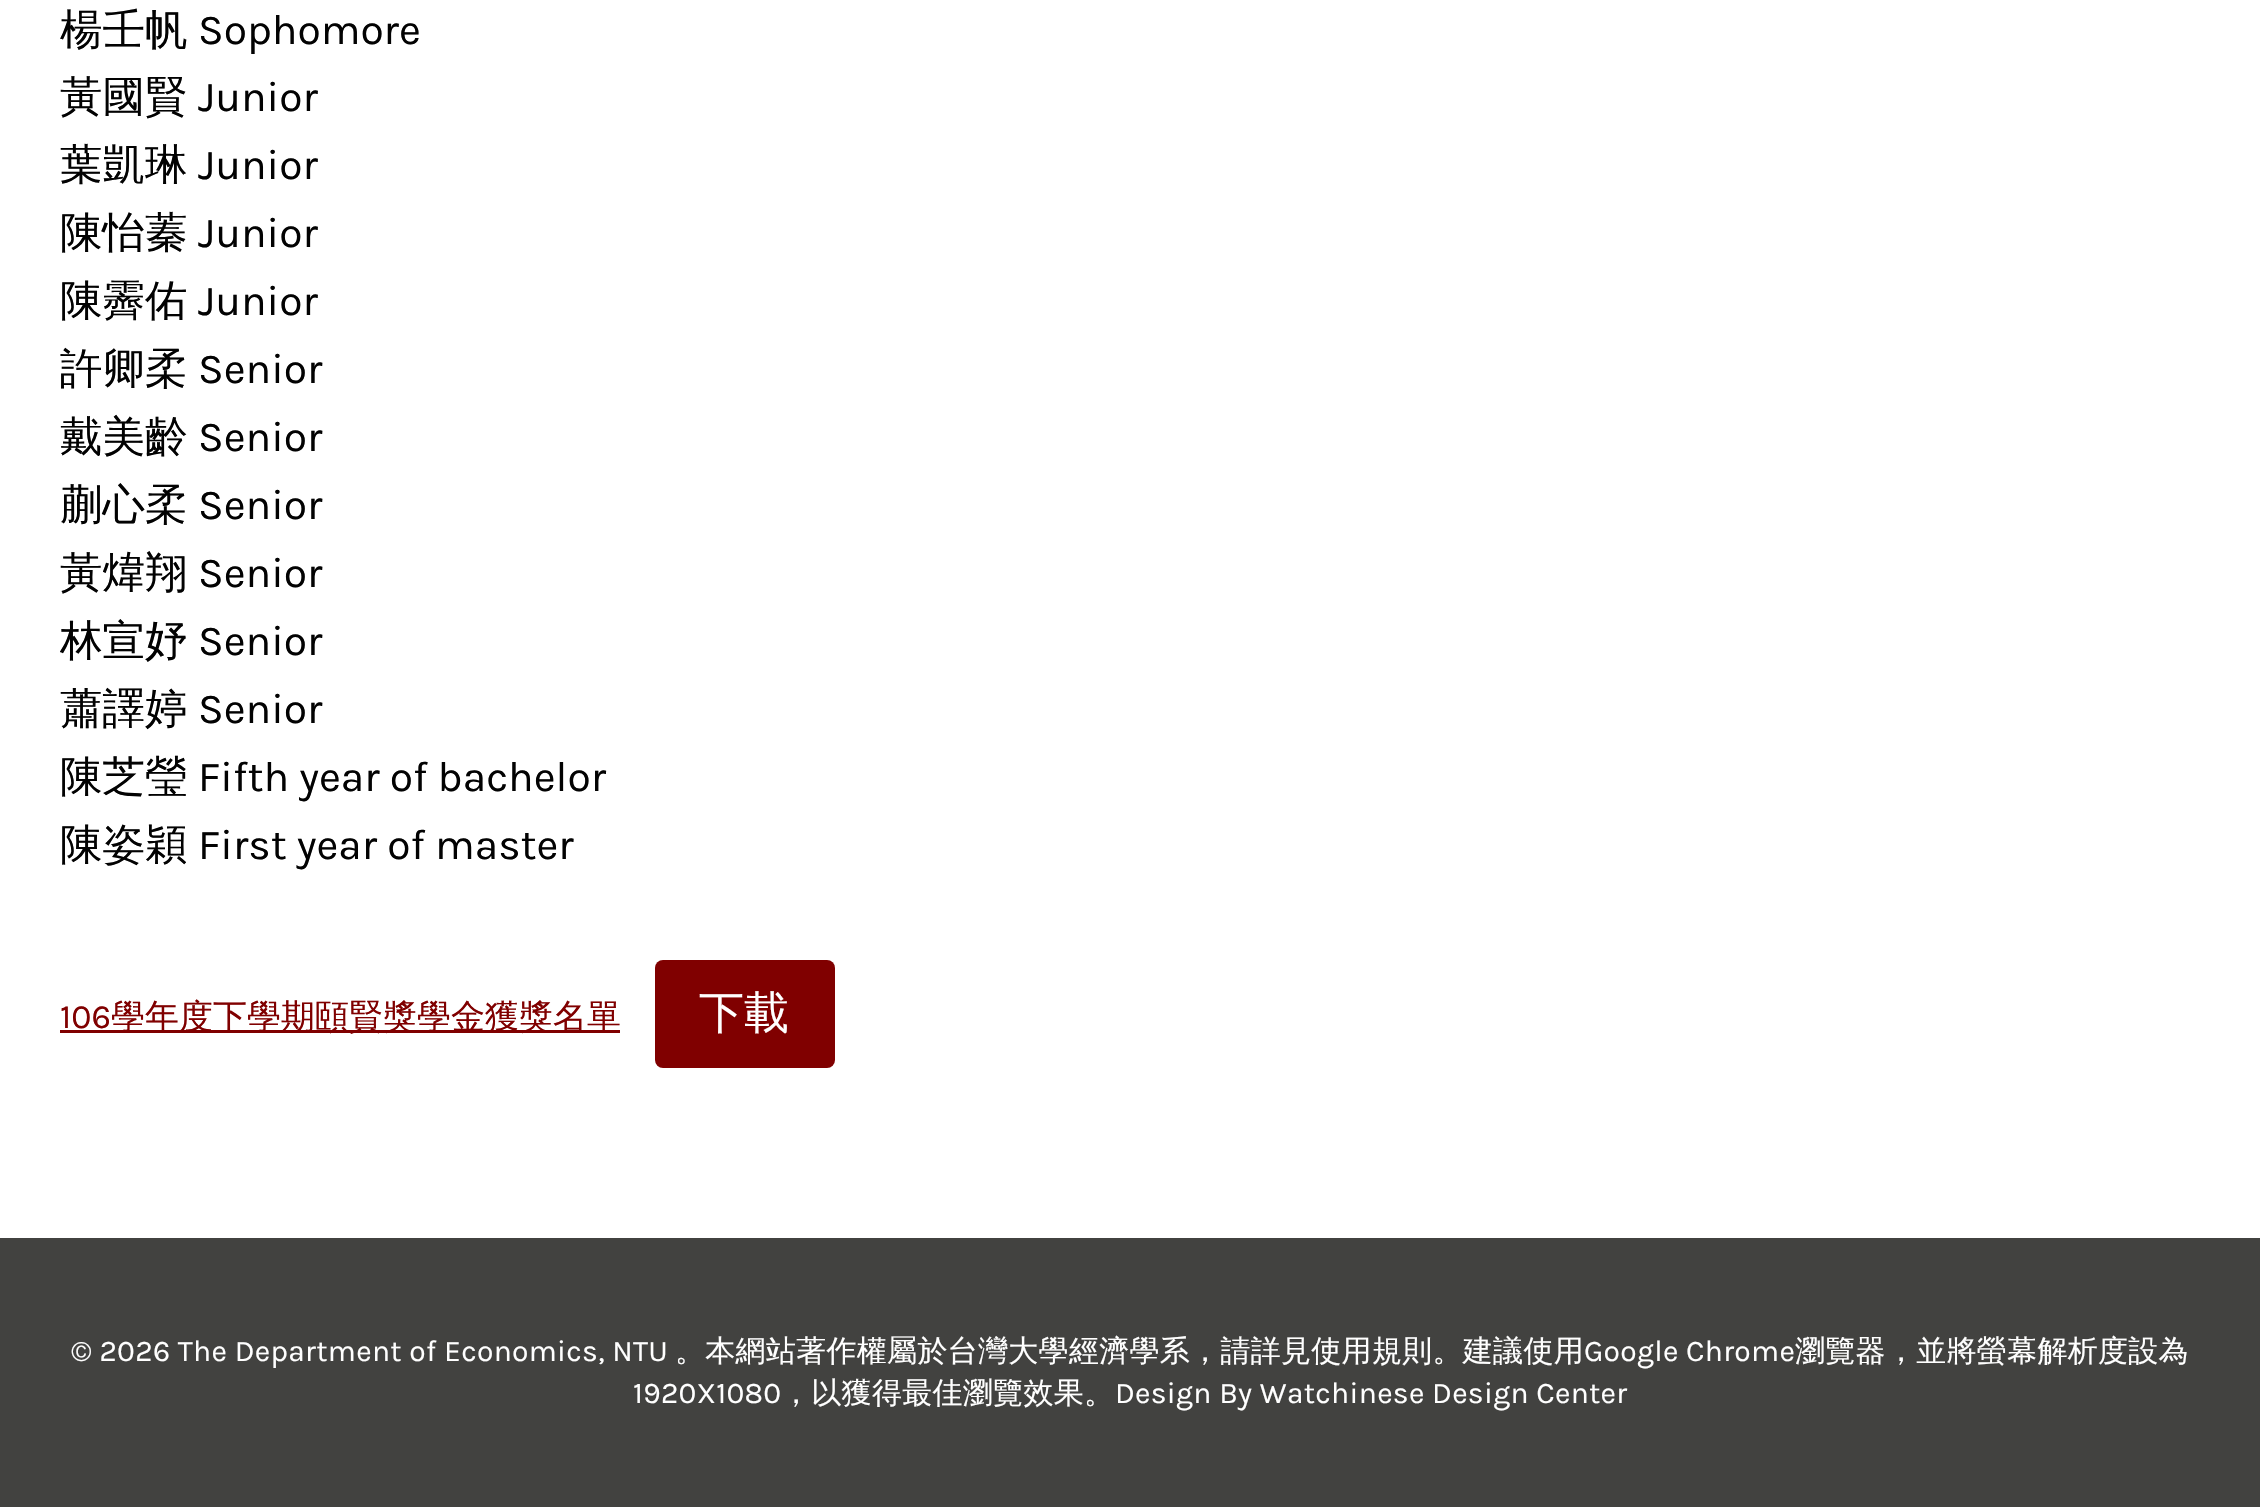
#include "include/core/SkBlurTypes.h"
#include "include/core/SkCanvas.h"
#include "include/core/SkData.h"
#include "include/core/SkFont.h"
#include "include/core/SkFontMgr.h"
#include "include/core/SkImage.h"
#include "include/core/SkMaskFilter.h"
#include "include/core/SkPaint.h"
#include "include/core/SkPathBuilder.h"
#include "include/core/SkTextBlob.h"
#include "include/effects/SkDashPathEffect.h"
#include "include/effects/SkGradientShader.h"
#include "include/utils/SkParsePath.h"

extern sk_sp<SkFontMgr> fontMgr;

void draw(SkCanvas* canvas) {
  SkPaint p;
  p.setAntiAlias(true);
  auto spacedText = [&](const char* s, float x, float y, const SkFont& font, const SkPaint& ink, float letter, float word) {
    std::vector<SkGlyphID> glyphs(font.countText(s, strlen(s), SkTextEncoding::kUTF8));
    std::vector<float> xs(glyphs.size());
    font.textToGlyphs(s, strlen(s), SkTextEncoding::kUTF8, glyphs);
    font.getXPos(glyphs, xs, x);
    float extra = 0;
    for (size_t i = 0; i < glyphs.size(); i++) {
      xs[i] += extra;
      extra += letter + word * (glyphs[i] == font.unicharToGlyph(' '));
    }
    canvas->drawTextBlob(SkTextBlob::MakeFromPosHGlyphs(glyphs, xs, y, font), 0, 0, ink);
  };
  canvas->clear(SK_ColorWHITE);
  p.setColor(SkColorSetRGB(128, 0, 0));
  canvas->drawRect(SkRect::MakeLTRB(60, 1030, 620, 1033), p);
  canvas->drawRoundRect(SkRect::MakeLTRB(655, 960, 835, 1068), 8, 8, p);
  p.setColor(SkColorSetRGB(66, 66, 64));
  canvas->drawRect(SkRect::MakeLTRB(0, 1238, 2260, 1507), p);
  SkFont font1(fontMgr->matchFamilyStyle("WenQuanYi Zen Hei", SkFontStyle(500, SkFontStyle::kNormal_Width, SkFontStyle::kUpright_Slant)), 42.5f);
  font1.setSubpixel(true);
  p.setColor(SkColorSetRGB(2, 2, 2));
  canvas->drawString("楊壬帆", 60, 44, font1, p);
  SkFont font2(fontMgr->matchFamilyStyle("Karla", SkFontStyle::Normal()), 42.5f);
  font2.setSubpixel(true);
  canvas->drawString("Sophomore", 198, 44, font2, p);
  canvas->drawString("黃國賢", 60, 111, font1, p);
  canvas->drawString("Junior", 198, 111, font2, p);
  canvas->drawString("葉凱琳", 60, 179, font1, p);
  canvas->drawString("Junior", 198, 179, font2, p);
  canvas->drawString("陳怡蓁", 60, 247, font1, p);
  canvas->drawString("Junior", 198, 247, font2, p);
  canvas->drawString("陳霽佑", 60, 315, font1, p);
  canvas->drawString("Junior", 198, 315, font2, p);
  canvas->drawString("許卿柔", 60, 383, font1, p);
  canvas->drawString("Senior", 198, 383, font2, p);
  canvas->drawString("戴美齡", 60, 451, font1, p);
  canvas->drawString("Senior", 198, 451, font2, p);
  canvas->drawString("蒯心柔", 60, 519, font1, p);
  canvas->drawString("Senior", 198, 519, font2, p);
  canvas->drawString("黃煒翔", 60, 587, font1, p);
  canvas->drawString("Senior", 198, 587, font2, p);
  canvas->drawString("林宣妤", 60, 655, font1, p);
  canvas->drawString("Senior", 198, 655, font2, p);
  canvas->drawString("蕭譯婷", 60, 723, font1, p);
  canvas->drawString("Senior", 198, 723, font2, p);
  canvas->drawString("陳芝瑩", 60, 791, font1, p);
  canvas->drawString("Fifth year of bachelor", 198, 791, font2, p);
  canvas->drawString("陳姿穎", 60, 859, font1, p);
  canvas->drawString("First year of master", 198, 859, font2, p);
  SkFont font3(fontMgr->matchFamilyStyle("Karla", SkFontStyle::Normal()), 34);
  font3.setSubpixel(true);
  p.setColor(SkColorSetRGB(128, 0, 0));
  canvas->drawString("106", 60, 1028, font3, p);
  SkFont font4(fontMgr->matchFamilyStyle("WenQuanYi Zen Hei", SkFontStyle(500, SkFontStyle::kNormal_Width, SkFontStyle::kUpright_Slant)), 34);
  font4.setSubpixel(true);
  canvas->drawString("學年度下學期頤賢獎學金獲獎名單", 111, 1028, font4, p);
  SkFont font5(fontMgr->matchFamilyStyle("WenQuanYi Zen Hei", SkFontStyle(500, SkFontStyle::kNormal_Width, SkFontStyle::kUpright_Slant)), 45);
  font5.setSubpixel(true);
  p.setColor(SK_ColorWHITE);
  canvas->drawString("下載", 699, 1028, font5, p);
  SkFont font6(fontMgr->matchFamilyStyle("Karla", SkFontStyle::Normal()), 30);
  font6.setSubpixel(true);
  spacedText("© 2026 The Department of Economics, NTU", 71, 1361, font6, p, 0.3f, 0);
  SkFont font7(fontMgr->matchFamilyStyle("WenQuanYi Zen Hei", SkFontStyle(500, SkFontStyle::kNormal_Width, SkFontStyle::kUpright_Slant)), 30);
  font7.setSubpixel(true);
  spacedText("。本網站著作權屬於台灣大學經濟學系，請詳見使用規則。建議使用", 675, 1361, font7, p, 0.3f, 0);
  spacedText("Google Chrome", 1584, 1361, font6, p, 0.3f, 0);
  spacedText("瀏覽器，並將螢幕解析度設為", 1795, 1361, font7, p, 0.3f, 0);
  spacedText("1920X1080", 633, 1403, font6, p, 0.3f, 0);
  spacedText("，以獲得最佳瀏覽效果。", 781, 1403, font7, p, 0.3f, 0);
  spacedText("Design By Watchinese Design Center", 1115, 1403, font6, p, 0.3f, 0);
}
